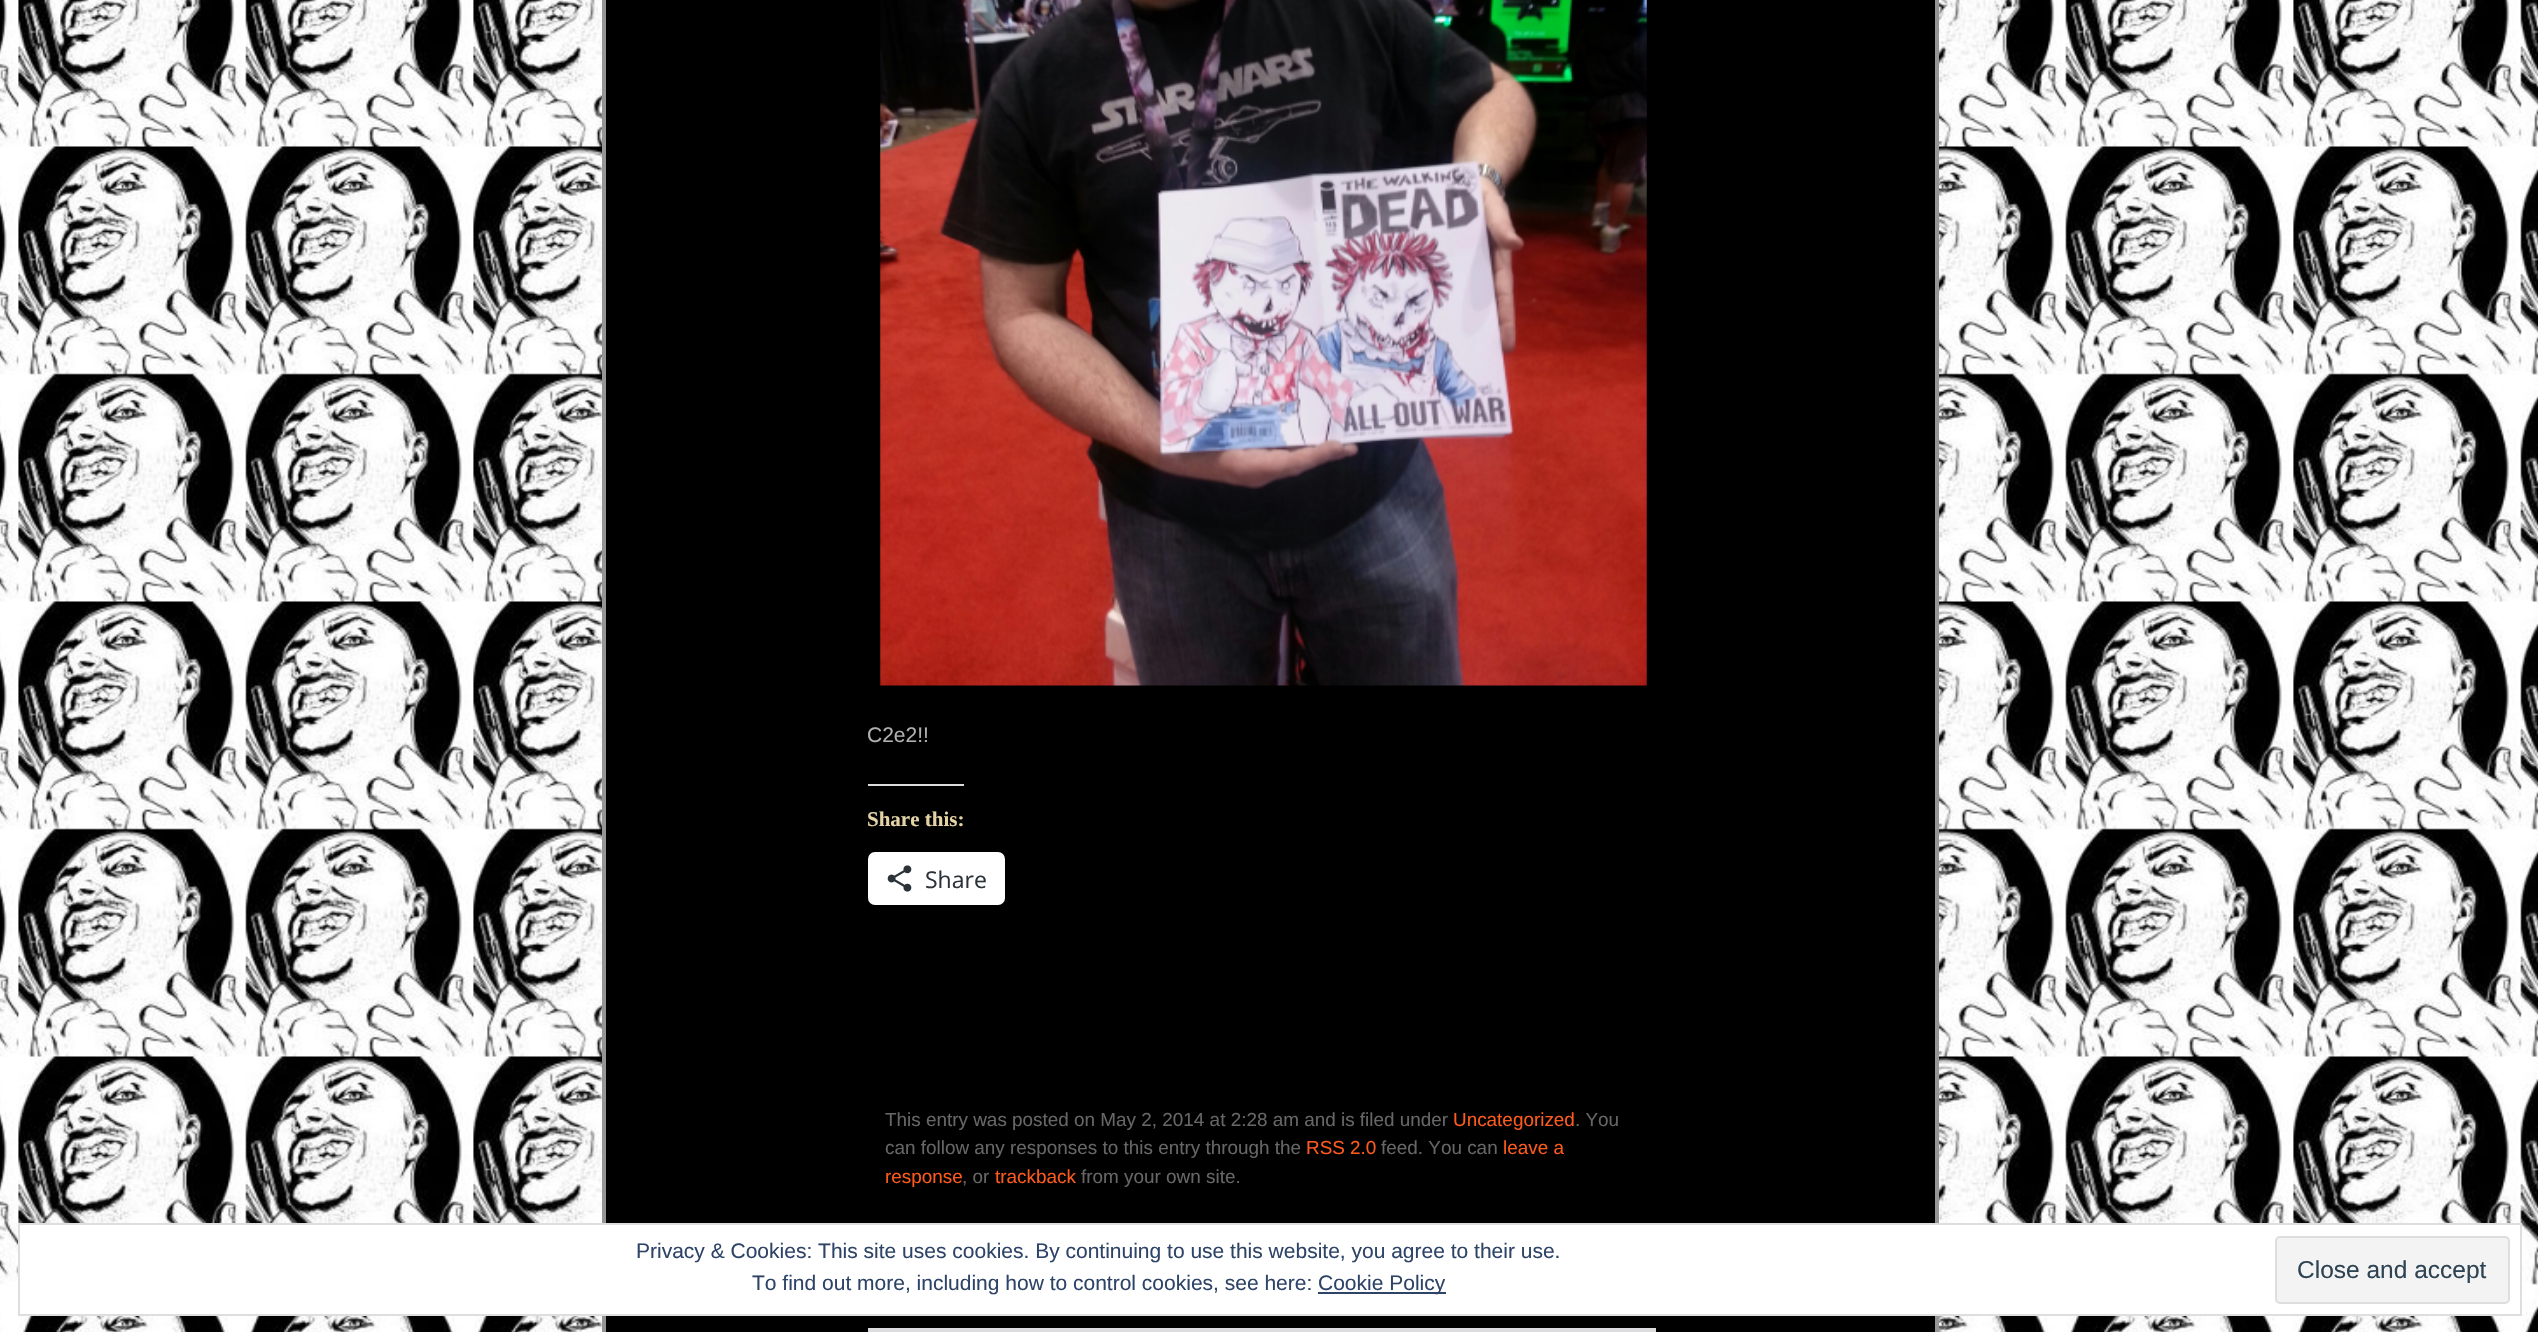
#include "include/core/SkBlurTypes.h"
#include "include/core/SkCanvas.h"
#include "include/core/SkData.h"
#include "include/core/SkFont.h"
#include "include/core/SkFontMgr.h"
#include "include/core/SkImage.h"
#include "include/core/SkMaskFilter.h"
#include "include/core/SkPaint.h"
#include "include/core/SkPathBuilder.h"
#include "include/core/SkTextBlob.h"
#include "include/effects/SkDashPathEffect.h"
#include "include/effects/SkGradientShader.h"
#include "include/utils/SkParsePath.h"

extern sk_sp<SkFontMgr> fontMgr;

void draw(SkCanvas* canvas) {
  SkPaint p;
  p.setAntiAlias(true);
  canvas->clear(SK_ColorWHITE);
  canvas->drawImageRect(SkImages::DeferredFromEncodedData(SkData::MakeFromFileName("images/1.png")), SkRect::MakeLTRB(0, 0, 2538, 1332), SkSamplingOptions());
  p.setColor(SK_ColorBLACK);
  canvas->drawRect(SkRect::MakeLTRB(604, -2, 1937, 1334), p);
  p.setStyle(SkPaint::kStroke_Style);
  p.setStrokeWidth(4);
  p.setColor(SkColorSetRGB(149, 149, 150));
  canvas->drawRect(SkRect::MakeLTRB(604, -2, 1937, 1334), p);
  canvas->drawImageRect(SkImages::DeferredFromEncodedData(SkData::MakeFromFileName("images/2.png")), SkRect::MakeLTRB(880, 0, 1647, 686), SkSamplingOptions());
  p.setStyle(SkPaint::kFill_Style);
  p.setColor(SkColorSetRGB(220, 220, 222));
  canvas->drawRect(SkRect::MakeLTRB(868, 784, 964, 786), p);
  p.setColor(SK_ColorWHITE);
  canvas->drawRoundRect(SkRect::MakeLTRB(868, 852, 1005, 905), 7, 7, p);
  canvas->drawImageRect(SkImages::DeferredFromEncodedData(SkData::MakeFromFileName("images/3.png")), SkRect::MakeLTRB(887, 865, 912, 892), SkSamplingOptions());
  p.setColor(SkColorSetRGB(220, 220, 222));
  canvas->drawRect(SkRect::MakeLTRB(868, 1328, 1656, 1332), p);
  p.setColor(SK_ColorWHITE);
  canvas->drawRect(SkRect::MakeLTRB(19, 1224, 2521, 1315), p);
  p.setStyle(SkPaint::kStroke_Style);
  p.setStrokeWidth(2);
  p.setColor(SkColorSetRGB(222, 222, 222));
  canvas->drawRect(SkRect::MakeLTRB(19, 1224, 2521, 1315), p);
  p.setStyle(SkPaint::kFill_Style);
  p.setColor(SkColorSetRGB(46, 68, 103));
  canvas->drawRect(SkRect::MakeLTRB(1318, 1292, 1446, 1294), p);
  p.setColor(SkColorSetRGB(243, 243, 243));
  canvas->drawRoundRect(SkRect::MakeLTRB(2276, 1237, 2509, 1303), 4, 4, p);
  p.setStyle(SkPaint::kStroke_Style);
  p.setColor(SkColorSetRGB(222, 222, 222));
  canvas->drawRoundRect(SkRect::MakeLTRB(2276, 1237, 2509, 1303), 4, 4, p);
  SkFont font1(fontMgr->matchFamilyStyle("Liberation Sans", SkFontStyle::Normal()), 21);
  font1.setSubpixel(true);
  p.setStyle(SkPaint::kFill_Style);
  p.setColor(SkColorSetRGB(176, 176, 176));
  canvas->drawString("C2e2!!", 867, 742, font1, p);
  SkFont font2(fontMgr->matchFamilyStyle("Liberation Serif", SkFontStyle::Bold()), 21);
  font2.setSubpixel(true);
  p.setColor(SkColorSetRGB(228, 211, 166));
  canvas->drawString("Share this:", 867, 826, font2, p);
  SkFont font3(fontMgr->matchFamilyStyle("Open Sans", SkFontStyle::Normal()), 23);
  font3.setSubpixel(true);
  p.setColor(SkColorSetRGB(44, 51, 56));
  canvas->drawString("Share", 925, 888, font3, p);
  SkFont font4(fontMgr->matchFamilyStyle("Liberation Sans", SkFontStyle::Normal()), 18.9f);
  font4.setSubpixel(true);
  p.setColor(SkColorSetRGB(102, 102, 102));
  canvas->drawString("This entry was posted on May 2, 2014 at 2:28 am and is filed under", 885, 1126, font4, p);
  p.setColor(SkColorSetRGB(253, 90, 30));
  canvas->drawString("Uncategorized", 1453, 1126, font4, p);
  p.setColor(SkColorSetRGB(102, 102, 102));
  canvas->drawString(". You", 1575, 1126, font4, p);
  canvas->drawString("can follow any responses to this entry through the", 885, 1154, font4, p);
  p.setColor(SkColorSetRGB(253, 90, 30));
  canvas->drawString("RSS 2.0", 1306, 1154, font4, p);
  p.setColor(SkColorSetRGB(102, 102, 102));
  canvas->drawString("feed. You can", 1381, 1154, font4, p);
  p.setColor(SkColorSetRGB(253, 90, 30));
  canvas->drawString("leave a", 1503, 1154, font4, p);
  canvas->drawString("response", 885, 1183, font4, p);
  p.setColor(SkColorSetRGB(102, 102, 102));
  canvas->drawString(", or", 962, 1183, font4, p);
  p.setColor(SkColorSetRGB(253, 90, 30));
  canvas->drawString("trackback", 995, 1183, font4, p);
  p.setColor(SkColorSetRGB(102, 102, 102));
  canvas->drawString("from your own site.", 1081, 1183, font4, p);
  p.setColor(SkColorSetRGB(46, 68, 103));
  canvas->drawString("Privacy & Cookies: This site uses cookies. By continuing to use this website, you agree to their use.", 636, 1258, font1, p);
  canvas->drawString("To find out more, including how to control cookies, see here:", 752, 1290, font1, p);
  canvas->drawString("Cookie Policy", 1318, 1290, font1, p);
  SkFont font5(fontMgr->matchFamilyStyle("Liberation Sans", SkFontStyle::Normal()), 24.5f);
  font5.setSubpixel(true);
  p.setColor(SkColorSetRGB(46, 68, 83));
  canvas->drawString("Close and accept", 2297, 1278, font5, p);
}
